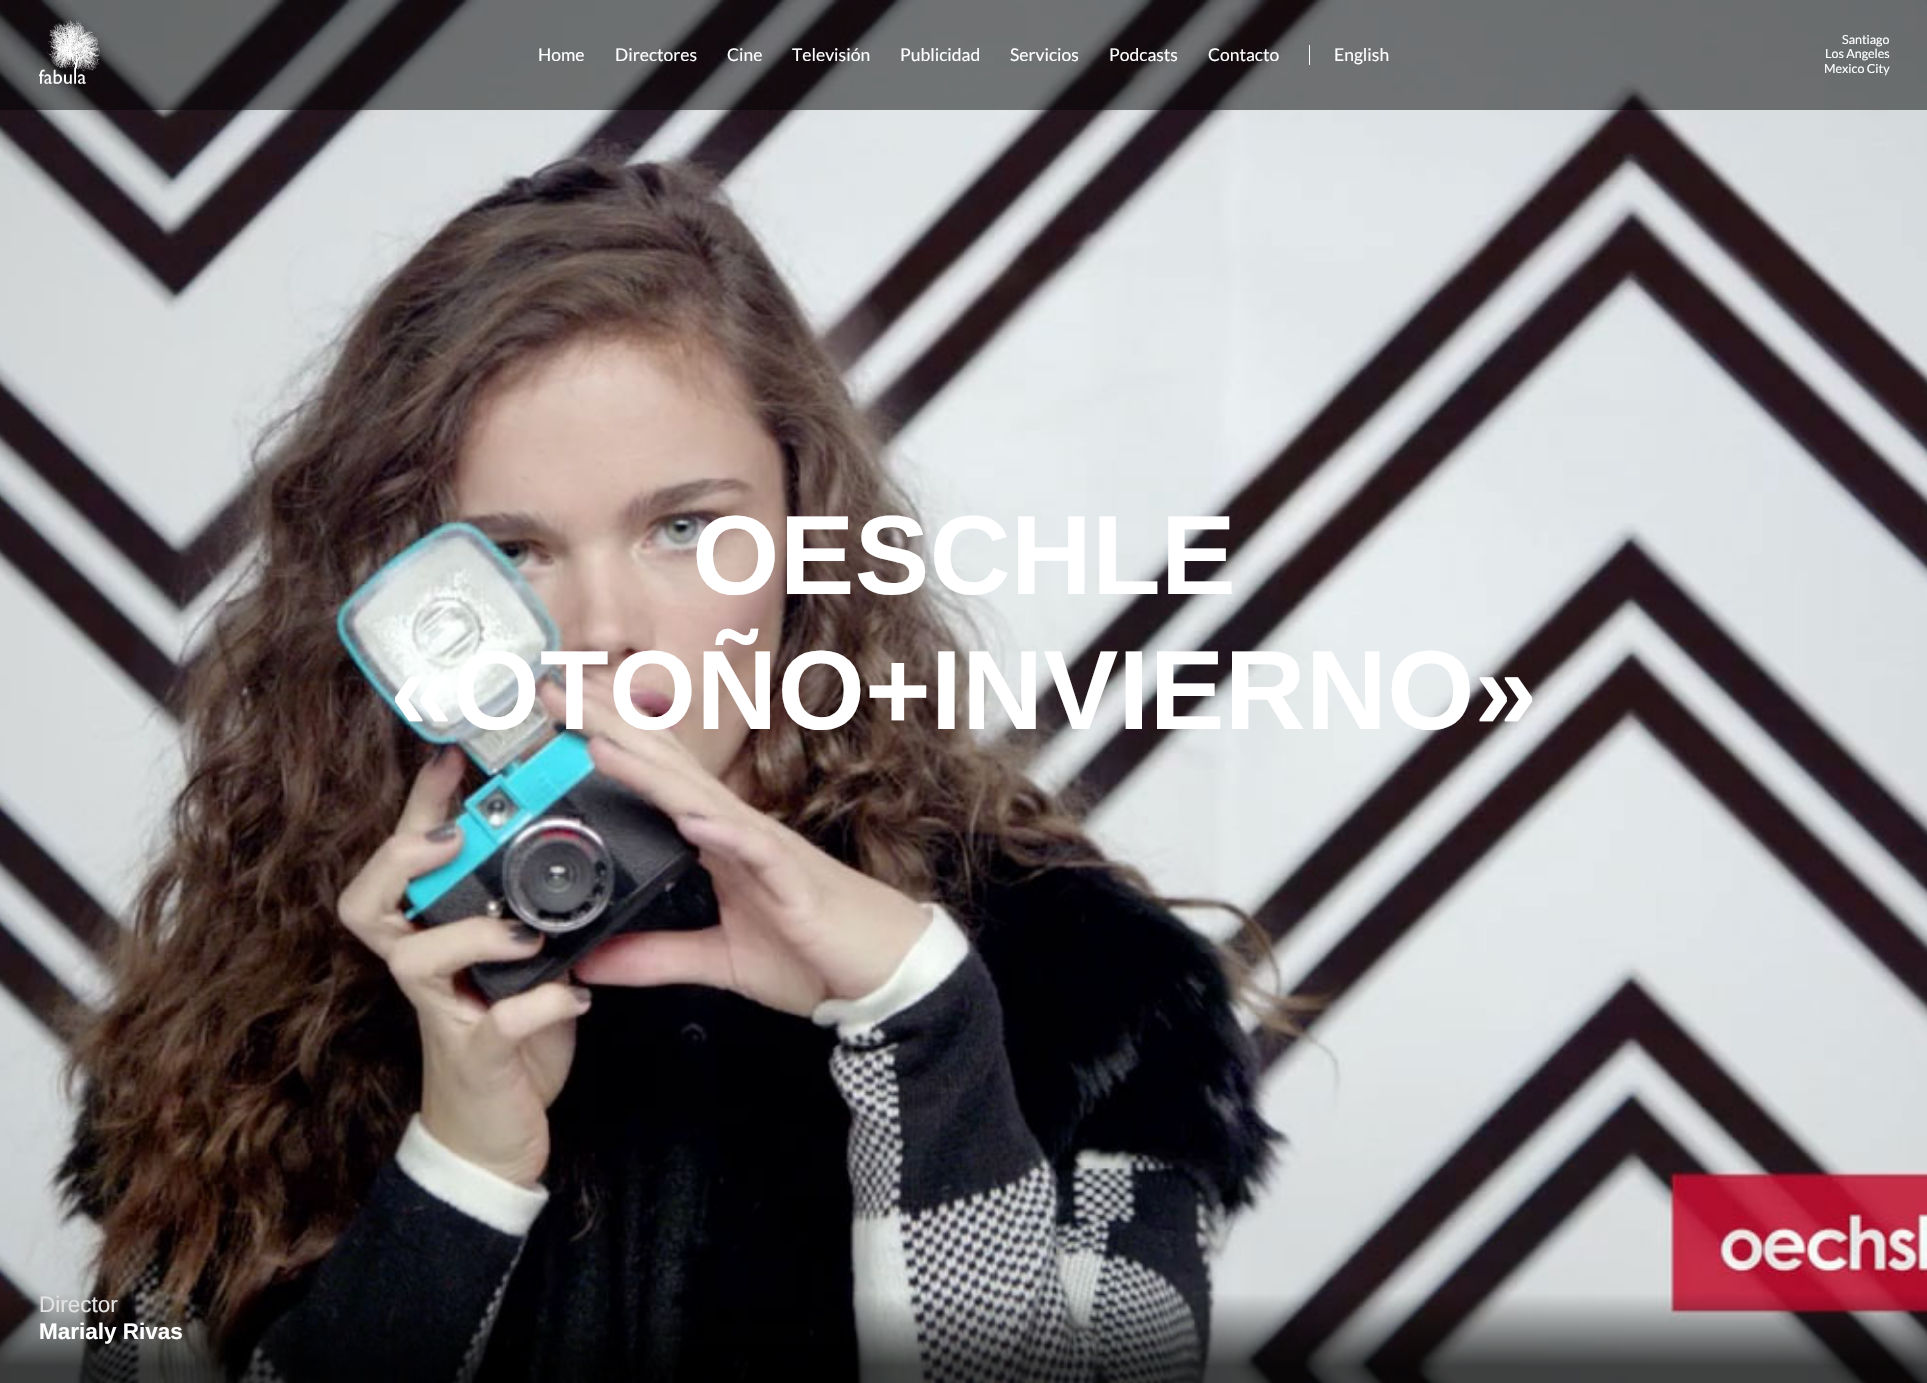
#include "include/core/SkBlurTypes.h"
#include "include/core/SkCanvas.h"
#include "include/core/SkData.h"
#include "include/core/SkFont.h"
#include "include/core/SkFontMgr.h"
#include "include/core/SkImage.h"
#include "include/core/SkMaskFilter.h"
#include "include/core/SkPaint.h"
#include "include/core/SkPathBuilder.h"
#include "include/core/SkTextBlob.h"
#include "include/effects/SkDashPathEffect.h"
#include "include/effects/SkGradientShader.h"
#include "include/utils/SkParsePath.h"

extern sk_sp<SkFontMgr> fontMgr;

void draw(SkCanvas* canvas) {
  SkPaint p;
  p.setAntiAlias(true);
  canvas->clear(SK_ColorWHITE);
  canvas->drawImageRect(SkImages::DeferredFromEncodedData(SkData::MakeFromFileName("images/2.png")), SkRect::MakeLTRB(0, 0, 1927, 1383), SkSamplingOptions());
  p.setColor(SkColorSetARGB(128, 0, 0, 0));
  canvas->drawRect(SkRect::MakeLTRB(0, 0, 1927, 110), p);
  canvas->drawImageRect(SkImages::DeferredFromEncodedData(SkData::MakeFromFileName("images/1.png")), SkRect::MakeLTRB(38, 19, 100, 84), SkSamplingOptions());
  p.setColor(SK_ColorWHITE);
  canvas->drawRect(SkRect::MakeLTRB(1309, 45, 1310, 65), p);
  SkFont font1(fontMgr->matchFamilyStyle("Lato", SkFontStyle::Normal()), 17.5f);
  font1.setSubpixel(true);
  canvas->drawString("Home", 538, 61, font1, p);
  canvas->drawString("Directores", 615, 61, font1, p);
  canvas->drawString("Cine", 727, 61, font1, p);
  canvas->drawString("Televisión", 792, 61, font1, p);
  canvas->drawString("Publicidad", 900, 61, font1, p);
  canvas->drawString("Servicios", 1010, 61, font1, p);
  canvas->drawString("Podcasts", 1109, 61, font1, p);
  canvas->drawString("Contacto", 1208, 61, font1, p);
  canvas->drawString("English", 1334, 61, font1, p);
  SkFont font2(fontMgr->matchFamilyStyle("Lato", SkFontStyle::Normal()), 12.5f);
  font2.setSubpixel(true);
  canvas->drawString("Santiago", 1842, 44, font2, p);
  canvas->drawString("Los Angeles", 1825, 58, font2, p);
  canvas->drawString("Mexico City", 1824, 73, font2, p);
  SkFont font3(fontMgr->matchFamilyStyle("Liberation Sans", SkFontStyle::Bold()), 112.5f);
  font3.setSubpixel(true);
  canvas->drawString("OESCHLE", 692, 594, font3, p);
  canvas->drawString("«OTOÑO+INVIERNO»", 390, 729, font3, p);
  SkFont font4(fontMgr->matchFamilyStyle("Liberation Sans", SkFontStyle::Normal()), 22.5f);
  font4.setSubpixel(true);
  p.setColor(SkColorSetRGB(228, 227, 227));
  canvas->drawString("Director", 39, 1312, font4, p);
  SkFont font5(fontMgr->matchFamilyStyle("Liberation Sans", SkFontStyle::Bold()), 22.5f);
  font5.setSubpixel(true);
  p.setColor(SK_ColorWHITE);
  canvas->drawString("Marialy Rivas", 39, 1339, font5, p);
}
